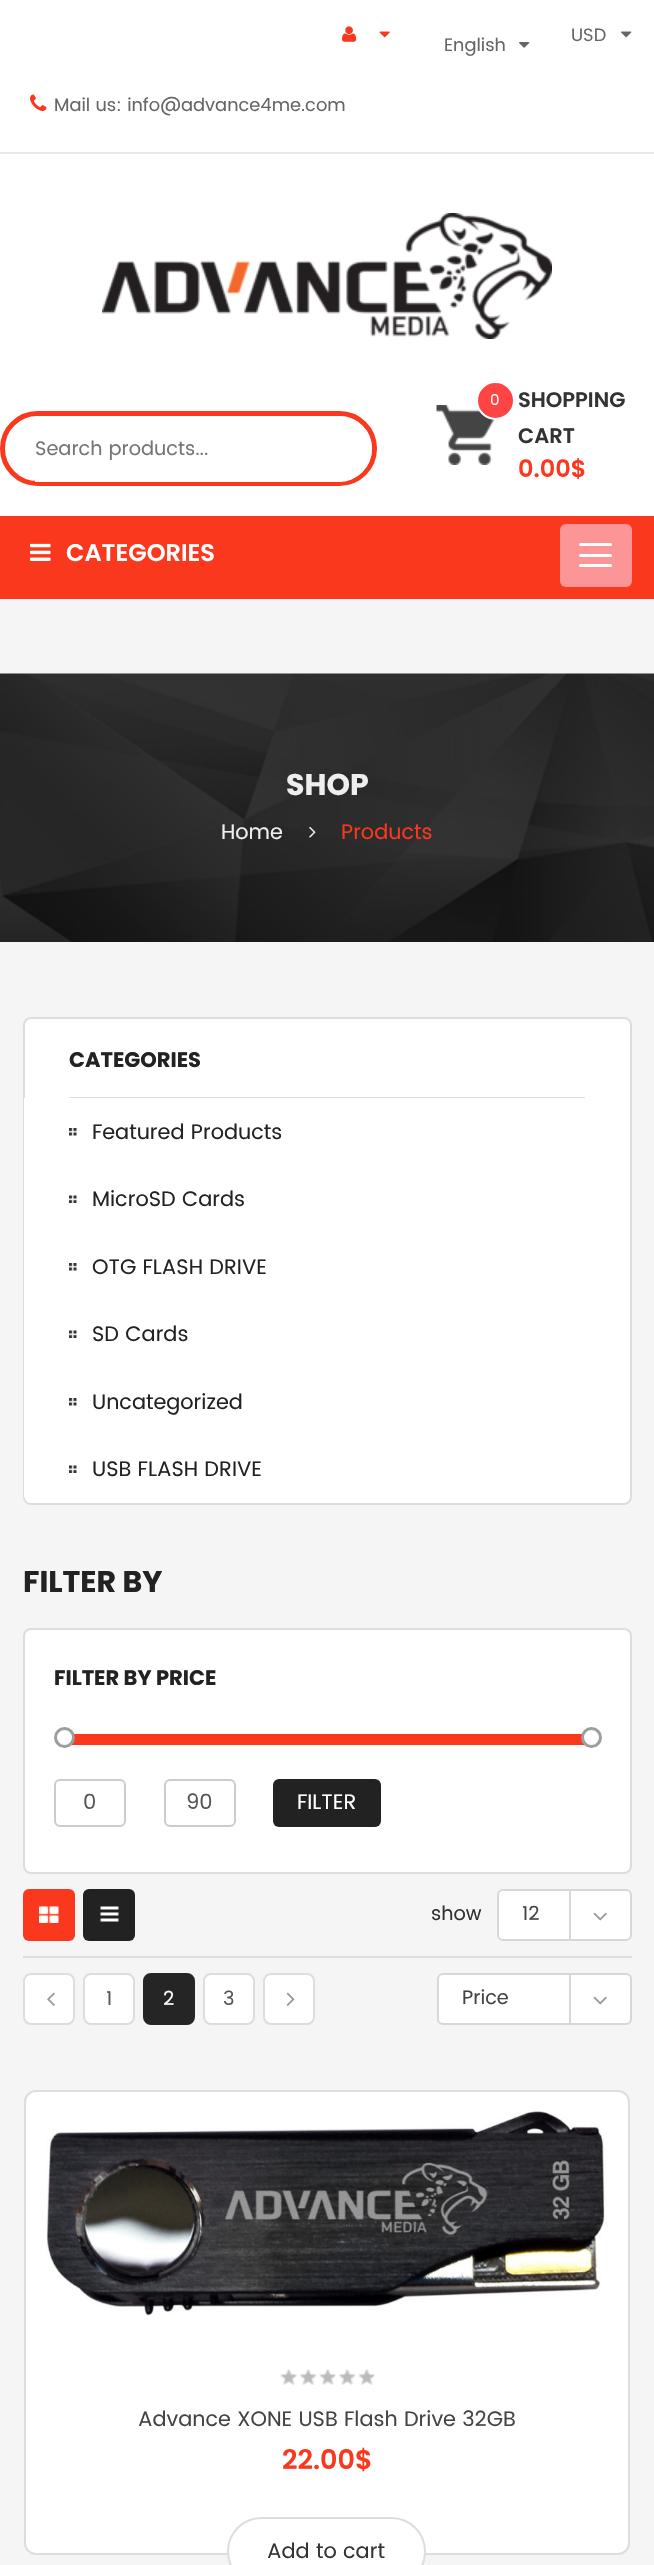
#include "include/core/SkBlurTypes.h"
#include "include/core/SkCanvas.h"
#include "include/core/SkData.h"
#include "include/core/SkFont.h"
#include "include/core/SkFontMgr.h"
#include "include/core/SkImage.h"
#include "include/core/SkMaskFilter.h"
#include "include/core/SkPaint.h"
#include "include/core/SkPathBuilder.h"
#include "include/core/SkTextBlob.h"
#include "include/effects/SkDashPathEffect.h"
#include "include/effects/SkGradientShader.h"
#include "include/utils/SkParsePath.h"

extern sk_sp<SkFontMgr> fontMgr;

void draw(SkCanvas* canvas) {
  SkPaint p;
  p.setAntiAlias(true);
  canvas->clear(SkColorSetRGB(245, 245, 245));
  p.setColor(SK_ColorWHITE);
  canvas->drawRect(SkRect::MakeLTRB(0, 0, 654, 516), p);
  canvas->drawImageRect(SkImages::DeferredFromEncodedData(SkData::MakeFromFileName("images/1.png")), SkRect::MakeLTRB(342, 26, 357, 42), SkSamplingOptions());
  canvas->drawImageRect(SkImages::DeferredFromEncodedData(SkData::MakeFromFileName("images/2.png")), SkRect::MakeLTRB(379, 31, 390, 38), SkSamplingOptions());
  canvas->drawImageRect(SkImages::DeferredFromEncodedData(SkData::MakeFromFileName("images/3.png")), SkRect::MakeLTRB(621, 31, 632, 38), SkSamplingOptions());
  canvas->drawImageRect(SkImages::DeferredFromEncodedData(SkData::MakeFromFileName("images/4.png")), SkRect::MakeLTRB(519, 42, 530, 48), SkSamplingOptions());
  canvas->drawImageRect(SkImages::DeferredFromEncodedData(SkData::MakeFromFileName("images/5.png")), SkRect::MakeLTRB(30, 94, 47, 111), SkSamplingOptions());
  p.setColor(SkColorSetRGB(231, 231, 231));
  canvas->drawRect(SkRect::MakeLTRB(0, 152, 654, 154), p);
  canvas->drawImageRect(SkImages::DeferredFromEncodedData(SkData::MakeFromFileName("images/6.png")), SkRect::MakeLTRB(102, 213, 552, 339), SkSamplingOptions());
  p.setStyle(SkPaint::kStroke_Style);
  p.setStrokeWidth(5);
  p.setColor(SkColorSetRGB(250, 56, 29));
  canvas->drawRoundRect(SkRect::MakeLTRB(2.5f, 413.5f, 374.5f, 483.5f), 35, 35, p);
  p.setStyle(SkPaint::kFill_Style);
  p.setColor(SK_ColorWHITE);
  canvas->drawRect(SkRect::MakeLTRB(35, 416, 342, 482), p);
  canvas->drawRoundRect(SkRect::MakeLTRB(279, 416, 372, 482), 33, 33, p);
  canvas->drawImageRect(SkImages::DeferredFromEncodedData(SkData::MakeFromFileName("images/7.png")), SkRect::MakeLTRB(436, 405, 495, 465), SkSamplingOptions());
  p.setColor(SkColorSetRGB(255, 68, 68));
  canvas->drawCircle(495.5f, 400.5f, 18.5f, p);
  p.setStyle(SkPaint::kStroke_Style);
  p.setStrokeWidth(2);
  p.setColor(SK_ColorWHITE);
  canvas->drawCircle(495.5f, 400.5f, 18.5f, p);
  p.setStyle(SkPaint::kFill_Style);
  p.setColor(SkColorSetRGB(250, 56, 29));
  canvas->drawRect(SkRect::MakeLTRB(0, 516, 654, 599), p);
  canvas->drawImageRect(SkImages::DeferredFromEncodedData(SkData::MakeFromFileName("images/8.png")), SkRect::MakeLTRB(30, 543, 51, 561), SkSamplingOptions());
  p.setColor(SkColorSetRGB(252, 150, 150));
  canvas->drawRoundRect(SkRect::MakeLTRB(560, 524, 632, 587), 6, 6, p);
  p.setColor(SK_ColorWHITE);
  canvas->drawRoundRect(SkRect::MakeLTRB(579, 543, 612, 546), 1.5f, 1.5f, p);
  canvas->drawRoundRect(SkRect::MakeLTRB(579, 554, 612, 557), 1.5f, 1.5f, p);
  canvas->drawRoundRect(SkRect::MakeLTRB(579, 564, 612, 567), 1.5f, 1.5f, p);
  canvas->drawImageRect(SkImages::DeferredFromEncodedData(SkData::MakeFromFileName("images/9.png")), SkRect::MakeLTRB(0, 673, 654, 942), SkSamplingOptions());
  canvas->drawImageRect(SkImages::DeferredFromEncodedData(SkData::MakeFromFileName("images/10.png")), SkRect::MakeLTRB(309, 826, 316, 838), SkSamplingOptions());
  canvas->drawRoundRect(SkRect::MakeLTRB(24, 1018, 631, 1504), 7, 7, p);
  p.setStyle(SkPaint::kStroke_Style);
  p.setColor(SkColorSetRGB(221, 221, 221));
  canvas->drawRoundRect(SkRect::MakeLTRB(24, 1018, 631, 1504), 7, 7, p);
  p.setStyle(SkPaint::kFill_Style);
  canvas->drawRect(SkRect::MakeLTRB(69, 1097, 585, 1098), p);
  p.setColor(SK_ColorWHITE);
  canvas->drawRect(SkRect::MakeLTRB(24, 1098, 25, 1436), p);
  canvas->drawImageRect(SkImages::DeferredFromEncodedData(SkData::MakeFromFileName("images/11.png")), SkRect::MakeLTRB(69, 1128, 77, 1136), SkSamplingOptions());
  canvas->drawImageRect(SkImages::DeferredFromEncodedData(SkData::MakeFromFileName("images/12.png")), SkRect::MakeLTRB(69, 1195, 77, 1203), SkSamplingOptions());
  canvas->drawImageRect(SkImages::DeferredFromEncodedData(SkData::MakeFromFileName("images/11.png")), SkRect::MakeLTRB(69, 1263, 77, 1271), SkSamplingOptions());
  canvas->drawImageRect(SkImages::DeferredFromEncodedData(SkData::MakeFromFileName("images/12.png")), SkRect::MakeLTRB(69, 1330, 77, 1338), SkSamplingOptions());
  canvas->drawImageRect(SkImages::DeferredFromEncodedData(SkData::MakeFromFileName("images/11.png")), SkRect::MakeLTRB(69, 1398, 77, 1406), SkSamplingOptions());
  canvas->drawPath(SkPathBuilder().moveTo(24, 1436).lineTo(630, 1436).lineTo(630, 1495).cubicTo(630, 1499.5f, 626.5f, 1503, 622, 1503).lineTo(32, 1503).cubicTo(27.5f, 1503, 24, 1499.5f, 24, 1495).close().detach(), p);
  canvas->drawImageRect(SkImages::DeferredFromEncodedData(SkData::MakeFromFileName("images/12.png")), SkRect::MakeLTRB(69, 1465, 77, 1473), SkSamplingOptions());
  canvas->drawRoundRect(SkRect::MakeLTRB(24, 1629, 631, 1873), 7, 7, p);
  p.setStyle(SkPaint::kStroke_Style);
  p.setColor(SkColorSetRGB(221, 221, 221));
  canvas->drawRoundRect(SkRect::MakeLTRB(24, 1629, 631, 1873), 7, 7, p);
  p.setStyle(SkPaint::kFill_Style);
  p.setColor(SkColorSetRGB(250, 56, 29));
  canvas->drawRect(SkRect::MakeLTRB(71, 1734, 585, 1745), p);
  p.setColor(SK_ColorWHITE);
  canvas->drawCircle(64.5f, 1737.5f, 9, p);
  p.setStyle(SkPaint::kStroke_Style);
  p.setStrokeWidth(3);
  p.setColor(SkColorSetRGB(158, 158, 158));
  canvas->drawCircle(64.5f, 1737.5f, 9, p);
  p.setStyle(SkPaint::kFill_Style);
  p.setColor(SK_ColorWHITE);
  canvas->drawCircle(591.5f, 1737.5f, 9, p);
  p.setStyle(SkPaint::kStroke_Style);
  p.setColor(SkColorSetRGB(158, 158, 158));
  canvas->drawCircle(591.5f, 1737.5f, 9, p);
  p.setStrokeWidth(2);
  p.setColor(SkColorSetRGB(204, 204, 204));
  canvas->drawRoundRect(SkRect::MakeLTRB(55, 1780, 125, 1826), 5, 5, p);
  canvas->drawRoundRect(SkRect::MakeLTRB(165, 1780, 235, 1826), 5, 5, p);
  p.setStyle(SkPaint::kFill_Style);
  p.setColor(SkColorSetRGB(34, 34, 34));
  canvas->drawRoundRect(SkRect::MakeLTRB(273, 1779, 381, 1827), 6, 6, p);
  p.setColor(SkColorSetRGB(221, 221, 221));
  canvas->drawRect(SkRect::MakeLTRB(23, 1956, 632, 1958), p);
  p.setColor(SkColorSetRGB(250, 56, 29));
  canvas->drawRoundRect(SkRect::MakeLTRB(23, 1889, 75, 1941), 6, 6, p);
  canvas->drawImageRect(SkImages::DeferredFromEncodedData(SkData::MakeFromFileName("images/13.png")), SkRect::MakeLTRB(39, 1906, 59, 1923), SkSamplingOptions());
  p.setColor(SkColorSetRGB(34, 34, 34));
  canvas->drawRoundRect(SkRect::MakeLTRB(83, 1889, 135, 1941), 6, 6, p);
  canvas->drawImageRect(SkImages::DeferredFromEncodedData(SkData::MakeFromFileName("images/14.png")), SkRect::MakeLTRB(100, 1906, 119, 1922), SkSamplingOptions());
  p.setColor(SK_ColorWHITE);
  canvas->drawRoundRect(SkRect::MakeLTRB(498, 1890, 631, 1940), 5, 5, p);
  p.setStyle(SkPaint::kStroke_Style);
  p.setColor(SkColorSetRGB(215, 215, 215));
  canvas->drawRoundRect(SkRect::MakeLTRB(498, 1890, 631, 1940), 5, 5, p);
  p.setStyle(SkPaint::kFill_Style);
  canvas->drawRect(SkRect::MakeLTRB(569, 1890, 571, 1940), p);
  canvas->drawImageRect(SkImages::DeferredFromEncodedData(SkData::MakeFromFileName("images/15.png")), SkRect::MakeLTRB(593, 1912, 607, 1921), SkSamplingOptions());
  p.setColor(SK_ColorWHITE);
  canvas->drawRoundRect(SkRect::MakeLTRB(24, 1974, 74, 2024), 7, 7, p);
  p.setStyle(SkPaint::kStroke_Style);
  p.setColor(SkColorSetRGB(221, 221, 221));
  canvas->drawRoundRect(SkRect::MakeLTRB(24, 1974, 74, 2024), 7, 7, p);
  canvas->drawImageRect(SkImages::DeferredFromEncodedData(SkData::MakeFromFileName("images/16.png")), SkRect::MakeLTRB(47, 1992, 55, 2006), SkSamplingOptions());
  p.setStyle(SkPaint::kFill_Style);
  p.setColor(SK_ColorWHITE);
  canvas->drawRoundRect(SkRect::MakeLTRB(84, 1974, 134, 2024), 7, 7, p);
  p.setStyle(SkPaint::kStroke_Style);
  p.setColor(SkColorSetRGB(221, 221, 221));
  canvas->drawRoundRect(SkRect::MakeLTRB(84, 1974, 134, 2024), 7, 7, p);
  p.setStyle(SkPaint::kFill_Style);
  p.setColor(SkColorSetRGB(37, 37, 37));
  canvas->drawRoundRect(SkRect::MakeLTRB(144, 1974, 194, 2024), 7, 7, p);
  p.setStyle(SkPaint::kStroke_Style);
  canvas->drawRoundRect(SkRect::MakeLTRB(144, 1974, 194, 2024), 7, 7, p);
  p.setStyle(SkPaint::kFill_Style);
  p.setColor(SK_ColorWHITE);
  canvas->drawRoundRect(SkRect::MakeLTRB(204, 1974, 254, 2024), 7, 7, p);
  p.setStyle(SkPaint::kStroke_Style);
  p.setColor(SkColorSetRGB(221, 221, 221));
  canvas->drawRoundRect(SkRect::MakeLTRB(204, 1974, 254, 2024), 7, 7, p);
  p.setStyle(SkPaint::kFill_Style);
  p.setColor(SK_ColorWHITE);
  canvas->drawRoundRect(SkRect::MakeLTRB(264, 1974, 314, 2024), 7, 7, p);
  p.setStyle(SkPaint::kStroke_Style);
  p.setColor(SkColorSetRGB(221, 221, 221));
  canvas->drawRoundRect(SkRect::MakeLTRB(264, 1974, 314, 2024), 7, 7, p);
  canvas->drawImageRect(SkImages::DeferredFromEncodedData(SkData::MakeFromFileName("images/17.png")), SkRect::MakeLTRB(286, 1992, 295, 2006), SkSamplingOptions());
  p.setStyle(SkPaint::kFill_Style);
  p.setColor(SK_ColorWHITE);
  canvas->drawRoundRect(SkRect::MakeLTRB(438, 1974, 631, 2024), 5, 5, p);
  p.setStyle(SkPaint::kStroke_Style);
  p.setColor(SkColorSetRGB(215, 215, 215));
  canvas->drawRoundRect(SkRect::MakeLTRB(438, 1974, 631, 2024), 5, 5, p);
  p.setStyle(SkPaint::kFill_Style);
  canvas->drawRect(SkRect::MakeLTRB(569, 1974, 571, 2024), p);
  canvas->drawImageRect(SkImages::DeferredFromEncodedData(SkData::MakeFromFileName("images/15.png")), SkRect::MakeLTRB(593, 1996, 607, 2005), SkSamplingOptions());
  p.setColor(SK_ColorWHITE);
  canvas->drawRoundRect(SkRect::MakeLTRB(25, 2091, 629, 2554), 11, 11, p);
  p.setStyle(SkPaint::kStroke_Style);
  p.setColor(SkColorSetRGB(221, 221, 221));
  canvas->drawRoundRect(SkRect::MakeLTRB(25, 2091, 629, 2554), 11, 11, p);
  canvas->drawImageRect(SkImages::DeferredFromEncodedData(SkData::MakeFromFileName("images/18.png")), SkRect::MakeLTRB(46, 2111, 607, 2316), SkSamplingOptions());
  canvas->drawImageRect(SkImages::DeferredFromEncodedData(SkData::MakeFromFileName("images/19.png")), SkRect::MakeLTRB(280, 2368, 375, 2385), SkSamplingOptions());
  p.setStyle(SkPaint::kFill_Style);
  p.setColor(SK_ColorWHITE);
  canvas->drawRoundRect(SkRect::MakeLTRB(228, 2518, 425, 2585), 33.5f, 33.5f, p);
  p.setStyle(SkPaint::kStroke_Style);
  p.setColor(SkColorSetRGB(221, 221, 221));
  canvas->drawRoundRect(SkRect::MakeLTRB(228, 2518, 425, 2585), 33.5f, 33.5f, p);
  SkFont font1(fontMgr->matchFamilyStyle("Poppins", SkFontStyle::Normal()), 18);
  font1.setSubpixel(true);
  p.setStyle(SkPaint::kFill_Style);
  p.setColor(SkColorSetRGB(102, 102, 102));
  canvas->drawString("USD", 571, 41, font1, p);
  canvas->drawString("English", 444, 51, font1, p);
  canvas->drawString("Mail us: info@advance4me.com", 54, 111, font1, p);
  SkFont font2(fontMgr->matchFamilyStyle("Poppins", SkFontStyle::Normal()), 19.5f);
  font2.setSubpixel(true);
  p.setColor(SkColorSetRGB(117, 117, 117));
  canvas->drawString("Search products...", 35, 455, font2, p);
  SkFont font3(fontMgr->matchFamilyStyle("Poppins", SkFontStyle::Normal()), 15);
  font3.setSubpixel(true);
  p.setColor(SK_ColorWHITE);
  canvas->drawString("0", 490, 405, font3, p);
  SkFont font4(fontMgr->matchFamilyStyle("Poppins", SkFontStyle(600, SkFontStyle::kNormal_Width, SkFontStyle::kUpright_Slant)), 21);
  font4.setSubpixel(true);
  p.setColor(SkColorSetRGB(51, 51, 51));
  canvas->drawString("SHOPPING", 518, 407, font4, p);
  canvas->drawString("CART", 518, 443, font4, p);
  SkFont font5(fontMgr->matchFamilyStyle("Poppins", SkFontStyle(600, SkFontStyle::kNormal_Width, SkFontStyle::kUpright_Slant)), 24);
  font5.setSubpixel(true);
  p.setColor(SkColorSetRGB(250, 56, 29));
  canvas->drawString("0.00$", 518, 477, font5, p);
  p.setColor(SK_ColorWHITE);
  canvas->drawString("CATEGORIES", 66, 561, font5, p);
  SkFont font6(fontMgr->matchFamilyStyle("Poppins", SkFontStyle::Bold()), 30);
  font6.setSubpixel(true);
  p.setColor(SkColorSetRGB(238, 238, 238));
  canvas->drawString("SHOP", 286, 795, font6, p);
  SkFont font7(fontMgr->matchFamilyStyle("Poppins", SkFontStyle::Normal()), 21);
  font7.setSubpixel(true);
  canvas->drawString("Home", 221, 839, font7, p);
  p.setColor(SkColorSetRGB(250, 56, 29));
  canvas->drawString("Products", 341, 839, font7, p);
  SkFont font8(fontMgr->matchFamilyStyle("Poppins", SkFontStyle::Bold()), 21);
  font8.setSubpixel(true);
  p.setColor(SkColorSetRGB(34, 34, 34));
  canvas->drawString("CATEGORIES", 69, 1067, font8, p);
  canvas->drawString("Featured Products", 92, 1139, font7, p);
  canvas->drawString("MicroSD Cards", 92, 1206, font7, p);
  canvas->drawString("OTG FLASH DRIVE", 92, 1274, font7, p);
  canvas->drawString("SD Cards", 92, 1341, font7, p);
  canvas->drawString("Uncategorized", 92, 1409, font7, p);
  canvas->drawString("USB FLASH DRIVE", 92, 1476, font7, p);
  canvas->drawString("FILTER BY", 23, 1592, font6, p);
  canvas->drawString("FILTER BY PRICE", 54, 1685, font8, p);
  p.setColor(SkColorSetRGB(85, 85, 85));
  canvas->drawString("0", 83, 1809, font7, p);
  canvas->drawString("90", 186, 1809, font7, p);
  p.setColor(SK_ColorWHITE);
  canvas->drawString("FILTER", 297, 1809, font7, p);
  p.setColor(SkColorSetRGB(51, 51, 51));
  canvas->drawString("show", 431, 1920, font2, p);
  p.setColor(SkColorSetRGB(68, 68, 68));
  canvas->drawString("12", 522, 1920, font2, p);
  p.setColor(SkColorSetRGB(85, 85, 85));
  canvas->drawString("1", 106, 2005, font2, p);
  p.setColor(SK_ColorWHITE);
  canvas->drawString("2", 163, 2005, font2, p);
  p.setColor(SkColorSetRGB(85, 85, 85));
  canvas->drawString("3", 223, 2005, font2, p);
  p.setColor(SkColorSetRGB(68, 68, 68));
  canvas->drawString("Price", 462, 2004, font2, p);
  canvas->drawString("Advance XONE USB Flash Drive 32GB", 138, 2426, font7, p);
  SkFont font9(fontMgr->matchFamilyStyle("Poppins", SkFontStyle(600, SkFontStyle::kNormal_Width, SkFontStyle::kUpright_Slant)), 27);
  font9.setSubpixel(true);
  p.setColor(SkColorSetRGB(250, 56, 29));
  canvas->drawString("22.00$", 282, 2469, font9, p);
  p.setColor(SkColorSetRGB(51, 51, 51));
  canvas->drawString("Add to cart", 267, 2558, font7, p);
}
